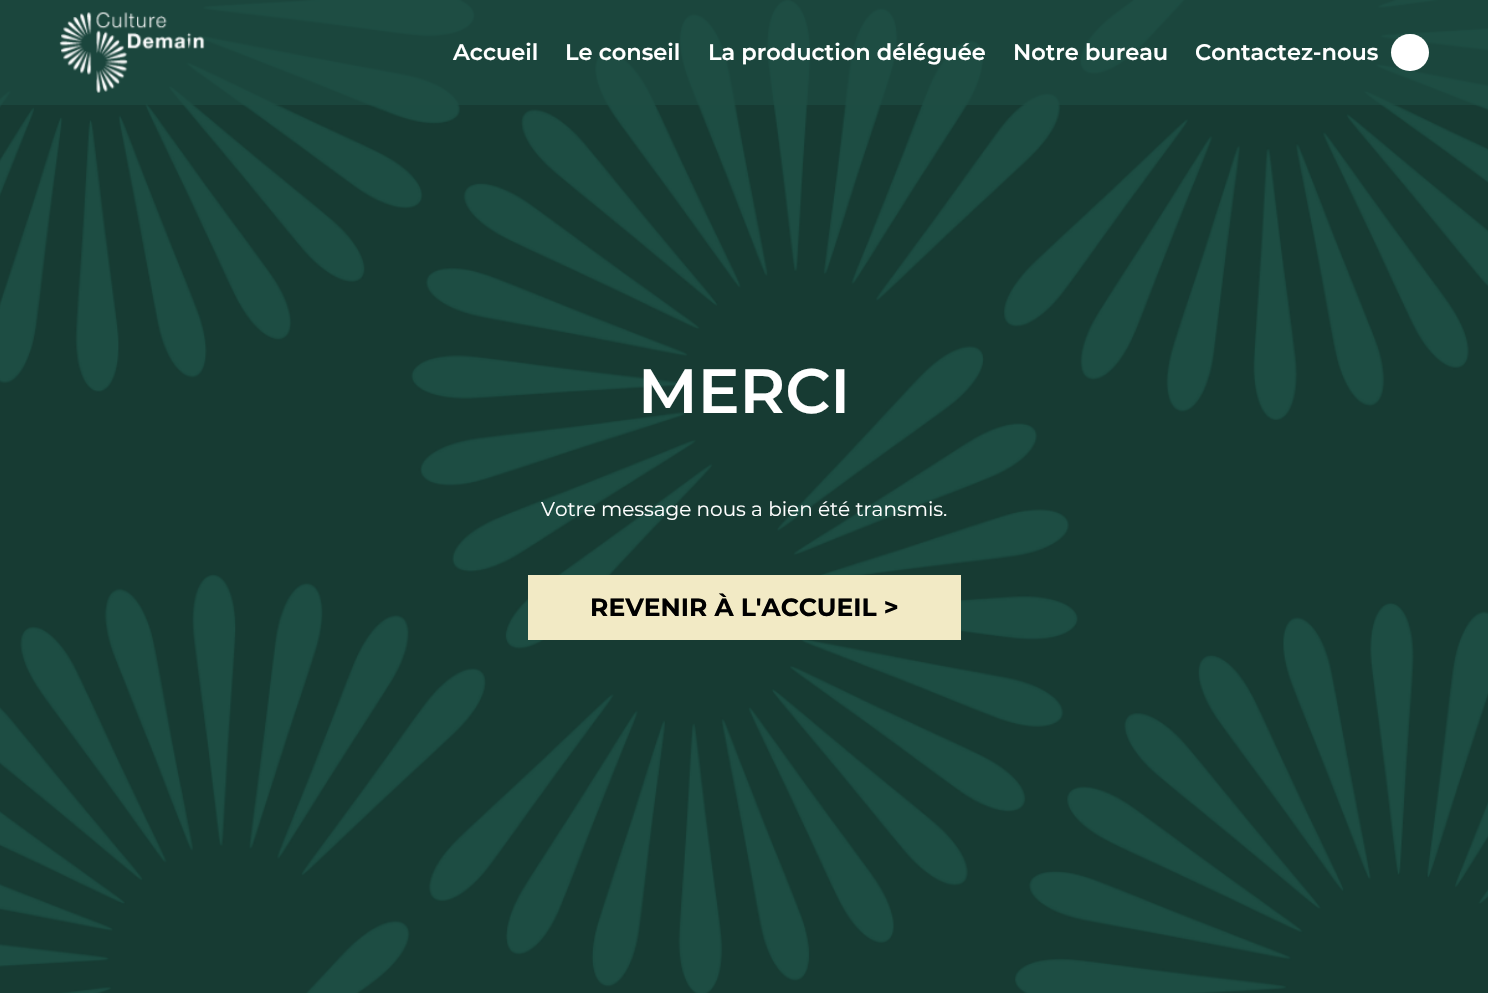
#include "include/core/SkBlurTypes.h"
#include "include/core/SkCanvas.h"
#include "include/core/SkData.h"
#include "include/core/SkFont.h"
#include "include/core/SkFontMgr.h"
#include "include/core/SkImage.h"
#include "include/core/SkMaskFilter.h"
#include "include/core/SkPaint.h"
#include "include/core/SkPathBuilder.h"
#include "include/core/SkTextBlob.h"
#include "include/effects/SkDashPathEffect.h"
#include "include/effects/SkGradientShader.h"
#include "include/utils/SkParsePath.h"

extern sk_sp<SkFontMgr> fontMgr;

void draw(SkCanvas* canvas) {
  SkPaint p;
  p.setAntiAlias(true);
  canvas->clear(SK_ColorWHITE);
  canvas->drawImageRect(SkImages::DeferredFromEncodedData(SkData::MakeFromFileName("images/2.png")), SkRect::MakeLTRB(0, 0, 1488, 993), SkSamplingOptions());
  p.setColor(SkColorSetARGB(156, 30, 77, 67));
  canvas->drawRect(SkRect::MakeLTRB(0, 0, 1488, 105), p);
  canvas->drawImageRect(SkImages::DeferredFromEncodedData(SkData::MakeFromFileName("images/1.png")), SkRect::MakeLTRB(59, 12, 205, 93), SkSamplingOptions());
  p.setColor(SK_ColorWHITE);
  canvas->drawRoundRect(SkRect::MakeLTRB(1391, 34, 1429, 71), 18.5f, 18.5f, p);
  p.setColor(SkColorSetRGB(242, 234, 197));
  canvas->drawRect(SkRect::MakeLTRB(528, 575, 961, 640), p);
  SkFont font1(fontMgr->matchFamilyStyle("Montserrat", SkFontStyle(600, SkFontStyle::kNormal_Width, SkFontStyle::kUpright_Slant)), 22.5f);
  font1.setSubpixel(true);
  p.setColor(SK_ColorWHITE);
  canvas->drawString("Accueil", 453, 60, font1, p);
  canvas->drawString("Le conseil", 565, 60, font1, p);
  canvas->drawString("La production déléguée", 708, 60, font1, p);
  canvas->drawString("Notre bureau", 1013, 60, font1, p);
  canvas->drawString("Contactez-nous", 1195, 60, font1, p);
  SkFont font2(fontMgr->matchFamilyStyle("Montserrat", SkFontStyle(600, SkFontStyle::kNormal_Width, SkFontStyle::kUpright_Slant)), 62.5f);
  font2.setSubpixel(true);
  canvas->drawString("MERCI", 638, 413, font2, p);
  SkFont font3(fontMgr->matchFamilyStyle("Montserrat", SkFontStyle::Normal()), 20);
  font3.setSubpixel(true);
  canvas->drawString("Votre message nous a bien été transmis.", 541, 516, font3, p);
  SkFont font4(fontMgr->matchFamilyStyle("Montserrat", SkFontStyle::Bold()), 25);
  font4.setSubpixel(true);
  p.setColor(SK_ColorBLACK);
  canvas->drawString("REVENIR À L'ACCUEIL >", 590, 616, font4, p);
}
